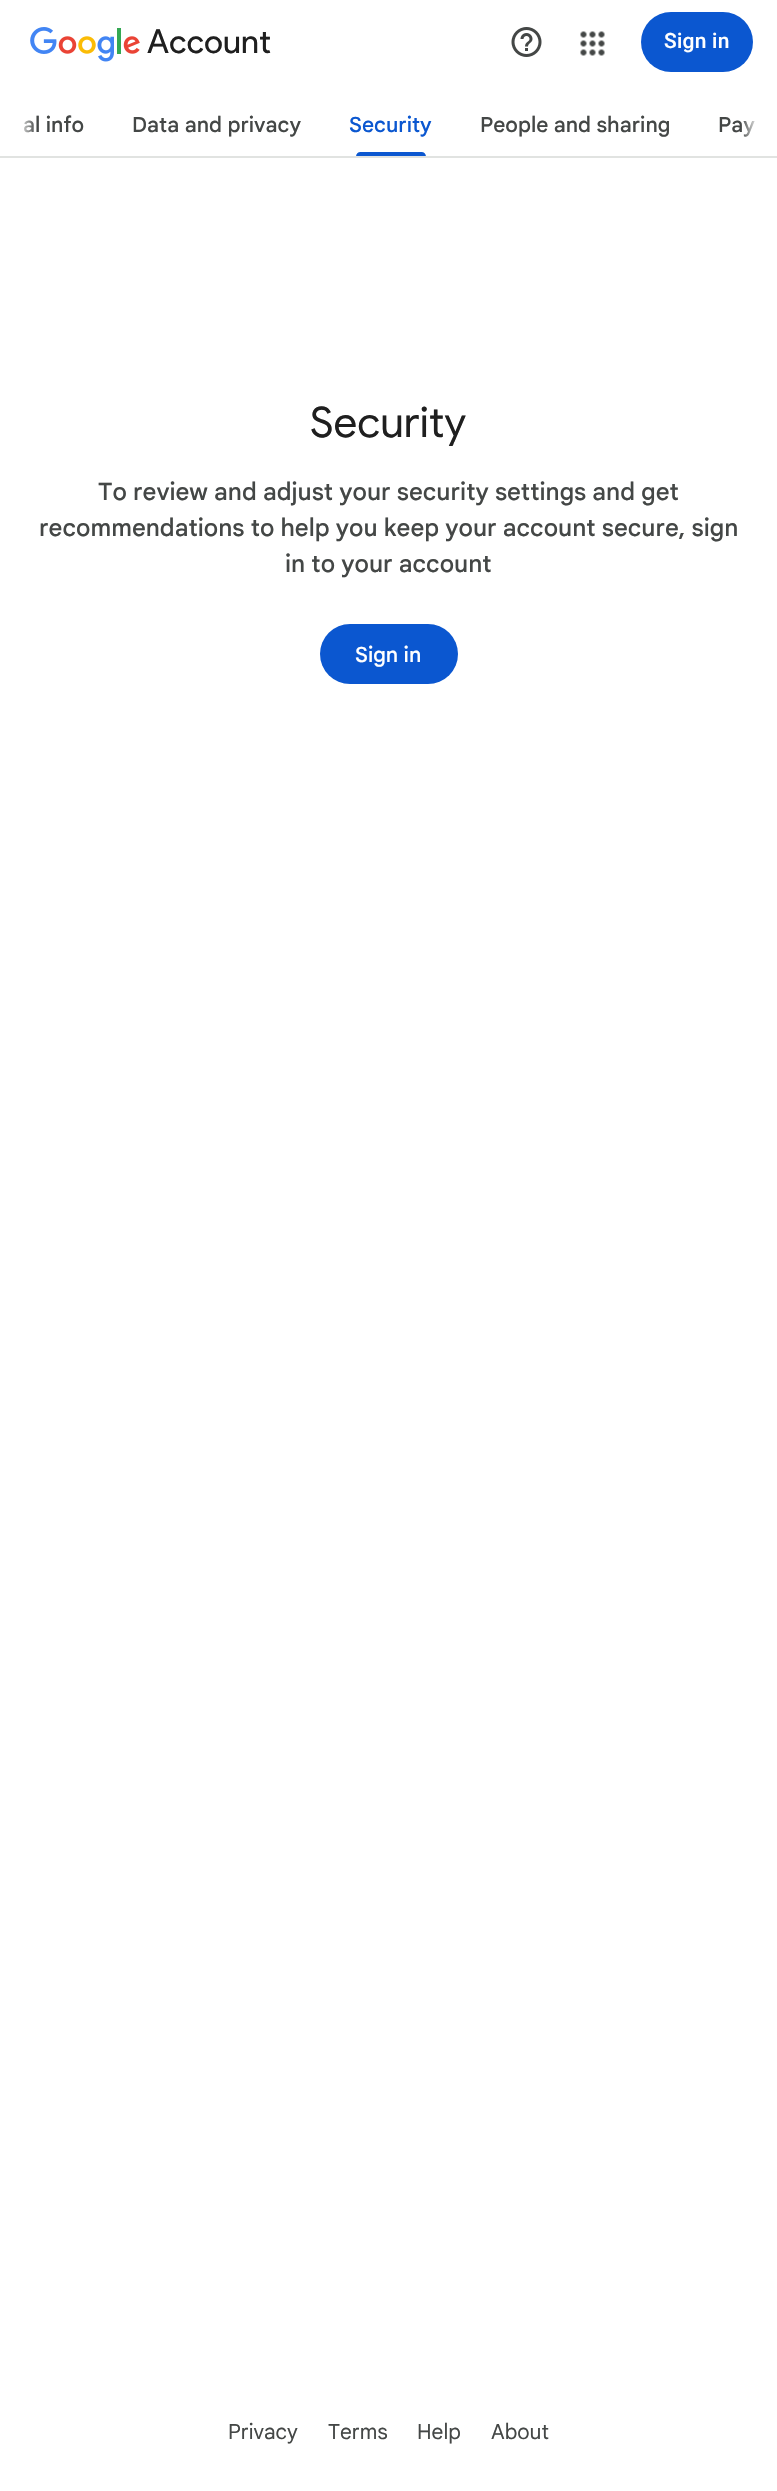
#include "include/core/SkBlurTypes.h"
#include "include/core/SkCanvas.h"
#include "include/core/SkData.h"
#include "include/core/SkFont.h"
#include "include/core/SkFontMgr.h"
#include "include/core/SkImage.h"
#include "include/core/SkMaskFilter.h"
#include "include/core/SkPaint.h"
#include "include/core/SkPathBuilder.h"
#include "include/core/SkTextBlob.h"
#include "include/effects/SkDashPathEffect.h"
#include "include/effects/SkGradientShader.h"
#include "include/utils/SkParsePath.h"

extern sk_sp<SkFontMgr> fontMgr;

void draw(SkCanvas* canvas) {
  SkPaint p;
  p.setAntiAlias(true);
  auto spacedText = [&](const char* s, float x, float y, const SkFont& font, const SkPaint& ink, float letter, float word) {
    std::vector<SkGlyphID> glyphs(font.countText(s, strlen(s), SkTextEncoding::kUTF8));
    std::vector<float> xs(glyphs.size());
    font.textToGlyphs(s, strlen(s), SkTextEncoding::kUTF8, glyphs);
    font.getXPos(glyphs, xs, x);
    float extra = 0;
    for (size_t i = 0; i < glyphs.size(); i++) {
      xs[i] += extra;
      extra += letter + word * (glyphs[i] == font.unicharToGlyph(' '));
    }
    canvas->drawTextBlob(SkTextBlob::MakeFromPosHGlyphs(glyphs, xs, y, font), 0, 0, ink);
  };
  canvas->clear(SK_ColorWHITE);
  canvas->drawImageRect(SkImages::DeferredFromEncodedData(SkData::MakeFromFileName("images/1.png")), SkRect::MakeLTRB(30, 27, 140, 62), SkSamplingOptions());
  canvas->drawImageRect(SkImages::DeferredFromEncodedData(SkData::MakeFromFileName("images/2.png")), SkRect::MakeLTRB(511, 27, 542, 57), SkSamplingOptions());
  canvas->drawImageRect(SkImages::DeferredFromEncodedData(SkData::MakeFromFileName("images/3.png")), SkRect::MakeLTRB(580, 31, 605, 56), SkSamplingOptions());
  p.setColor(SkColorSetRGB(11, 87, 208));
  canvas->drawRoundRect(SkRect::MakeLTRB(641, 12, 753, 72), 30, 30, p);
  p.setColor(SkColorSetRGB(225, 227, 225));
  canvas->drawRect(SkRect::MakeLTRB(0, 156, 777, 158), p);
  p.setColor(SkColorSetRGB(11, 87, 208));
  canvas->drawPath(SkPathBuilder().moveTo(360.5f, 152).lineTo(421.5f, 152).cubicTo(424, 152, 426, 154, 426, 156.5f).lineTo(426, 156).lineTo(356, 156).lineTo(356, 156.5f).cubicTo(356, 154, 358, 152, 360.5f, 152).close().detach(), p);
  canvas->drawRoundRect(SkRect::MakeLTRB(320, 624, 458, 684), 30, 30, p);
  SkFont font1(fontMgr->matchFamilyStyle("Product Sans", SkFontStyle::Normal()), 33);
  font1.setSubpixel(true);
  p.setColor(SkColorSetRGB(31, 31, 31));
  spacedText("Account", 147, 53, font1, p, 0.25f, 0);
  SkFont font2(fontMgr->matchFamilyStyle("Roboto", SkFontStyle(500, SkFontStyle::kNormal_Width, SkFontStyle::kUpright_Slant)), 21);
  font2.setSubpixel(true);
  p.setColor(SK_ColorWHITE);
  spacedText("Sign in", 664, 48, font2, p, 0.25f, 0);
  SkFont font3(fontMgr->matchFamilyStyle("Google Sans", SkFontStyle(500, SkFontStyle::kNormal_Width, SkFontStyle::kUpright_Slant)), 21);
  font3.setSubpixel(true);
  p.setColor(SkColorSetRGB(68, 71, 70));
  canvas->drawString("al info", 23, 132, font3, p);
  canvas->drawString("Data and privacy", 132, 132, font3, p);
  p.setColor(SkColorSetRGB(11, 87, 208));
  canvas->drawString("Security", 349, 132, font3, p);
  p.setColor(SkColorSetRGB(68, 71, 70));
  canvas->drawString("People and sharing", 480, 132, font3, p);
  canvas->drawString("Pay", 718, 132, font3, p);
  {
    const SkColor colors[] = {SkColorSetARGB(0, 255, 255, 255), SK_ColorWHITE};
    const float stops[] = {0, 0.5f};
    const SkPoint ends[] = {{36, 120}, {0, 120}};
    p.setShader(SkGradientShader::MakeLinear(ends, colors, stops, 2, SkTileMode::kClamp));
    p.setAlpha(255);
  }
  canvas->drawRect(SkRect::MakeLTRB(23, 120, 34, 133), p);
  {
    const SkColor colors[] = {SkColorSetARGB(0, 255, 255, 255), SK_ColorWHITE};
    const float stops[] = {0, 0.5f};
    const SkPoint ends[] = {{741, 120}, {777, 120}};
    p.setShader(SkGradientShader::MakeLinear(ends, colors, stops, 2, SkTileMode::kClamp));
    p.setAlpha(255);
  }
  canvas->drawRect(SkRect::MakeLTRB(741, 120, 755, 137), p);
  SkFont font4(fontMgr->matchFamilyStyle("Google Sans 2", SkFontStyle::Normal()), 42);
  font4.setSubpixel(true);
  p.setShader(nullptr);
  p.setColor(SkColorSetRGB(31, 31, 31));
  canvas->drawString("Security", 310, 437, font4, p);
  SkFont font5(fontMgr->matchFamilyStyle("Google Sans", SkFontStyle(500, SkFontStyle::kNormal_Width, SkFontStyle::kUpright_Slant)), 24);
  font5.setSubpixel(true);
  p.setColor(SkColorSetRGB(68, 71, 70));
  canvas->drawString("To review and adjust your security settings and get", 98, 500, font5, p);
  canvas->drawString("recommendations to help you keep your account secure, sign", 39, 536, font5, p);
  canvas->drawString("in to your account", 285, 572, font5, p);
  p.setColor(SK_ColorWHITE);
  canvas->drawString("Sign in", 355, 662, font3, p);
  SkFont font6(fontMgr->matchFamilyStyle("Google Sans", SkFontStyle::Normal()), 21);
  font6.setSubpixel(true);
  p.setColor(SkColorSetRGB(68, 71, 70));
  canvas->drawString("Privacy", 228, 2439, font6, p);
  canvas->drawString("Terms", 328, 2439, font6, p);
  canvas->drawString("Help", 417, 2439, font6, p);
  canvas->drawString("About", 491, 2439, font6, p);
}
